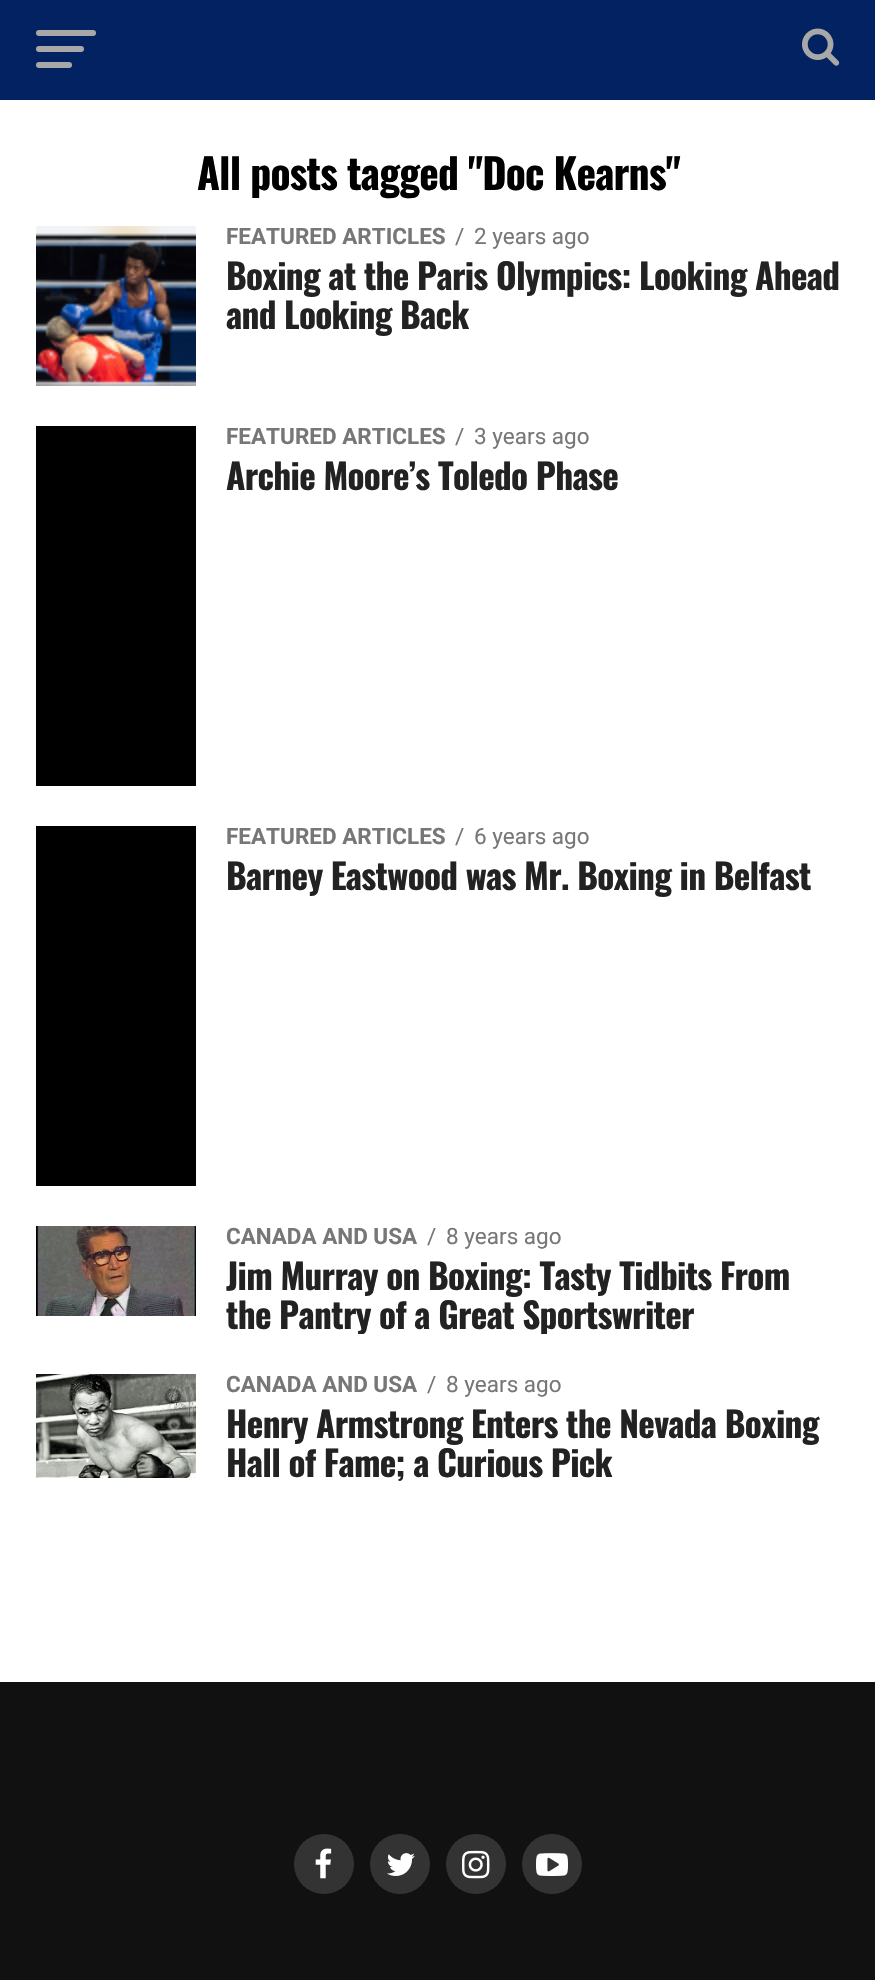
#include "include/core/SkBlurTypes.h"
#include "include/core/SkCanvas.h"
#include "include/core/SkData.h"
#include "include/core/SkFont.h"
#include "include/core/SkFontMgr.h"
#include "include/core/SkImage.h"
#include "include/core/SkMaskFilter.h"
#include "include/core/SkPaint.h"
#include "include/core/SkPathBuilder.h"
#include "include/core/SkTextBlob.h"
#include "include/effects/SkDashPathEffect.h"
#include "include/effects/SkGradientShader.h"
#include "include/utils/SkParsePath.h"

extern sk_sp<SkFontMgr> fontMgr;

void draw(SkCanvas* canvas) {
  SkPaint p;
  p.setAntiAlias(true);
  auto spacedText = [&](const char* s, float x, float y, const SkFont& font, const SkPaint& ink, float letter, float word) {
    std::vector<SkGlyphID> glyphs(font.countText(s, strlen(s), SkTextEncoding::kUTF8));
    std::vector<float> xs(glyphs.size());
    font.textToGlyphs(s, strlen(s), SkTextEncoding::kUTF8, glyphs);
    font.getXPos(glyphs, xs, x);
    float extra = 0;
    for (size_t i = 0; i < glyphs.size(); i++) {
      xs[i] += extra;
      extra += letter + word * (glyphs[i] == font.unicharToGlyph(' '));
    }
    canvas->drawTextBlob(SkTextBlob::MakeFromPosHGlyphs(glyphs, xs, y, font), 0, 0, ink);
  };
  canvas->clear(SK_ColorWHITE);
  p.setColor(SkColorSetRGB(2, 34, 97));
  canvas->drawRect(SkRect::MakeLTRB(0, 0, 875, 100), p);
  p.setColor(SkColorSetRGB(168, 168, 168));
  canvas->drawRoundRect(SkRect::MakeLTRB(36, 30, 96, 36), 3, 3, p);
  canvas->drawRoundRect(SkRect::MakeLTRB(36, 46, 84, 52), 3, 3, p);
  canvas->drawRoundRect(SkRect::MakeLTRB(36, 62, 72, 68), 3, 3, p);
  canvas->drawImageRect(SkImages::DeferredFromEncodedData(SkData::MakeFromFileName("images/1.png")), SkRect::MakeLTRB(802, 28, 840, 66), SkSamplingOptions());
  canvas->drawImageRect(SkImages::DeferredFromEncodedData(SkData::MakeFromFileName("images/2.png")), SkRect::MakeLTRB(36, 226, 196, 386), SkSamplingOptions());
  p.setColor(SK_ColorBLACK);
  canvas->drawRect(SkRect::MakeLTRB(36, 426, 196, 786), p);
  canvas->drawRect(SkRect::MakeLTRB(36, 826, 196, 1186), p);
  canvas->drawRect(SkRect::MakeLTRB(36, 1226, 37, 1316), p);
  canvas->drawImageRect(SkImages::DeferredFromEncodedData(SkData::MakeFromFileName("images/3.png")), SkRect::MakeLTRB(37, 1226, 196, 1316), SkSamplingOptions());
  canvas->drawImageRect(SkImages::DeferredFromEncodedData(SkData::MakeFromFileName("images/4.png")), SkRect::MakeLTRB(36, 1374, 196, 1478), SkSamplingOptions());
  p.setColor(SkColorSetRGB(17, 17, 17));
  canvas->drawRect(SkRect::MakeLTRB(0, 1682, 875, 1980), p);
  p.setColor(SkColorSetRGB(51, 51, 51));
  canvas->drawCircle(324, 1864, 30, p);
  canvas->drawImageRect(SkImages::DeferredFromEncodedData(SkData::MakeFromFileName("images/5.png")), SkRect::MakeLTRB(315, 1848, 332, 1879), SkSamplingOptions());
  canvas->drawCircle(400, 1864, 30, p);
  canvas->drawImageRect(SkImages::DeferredFromEncodedData(SkData::MakeFromFileName("images/6.png")), SkRect::MakeLTRB(387, 1853, 415, 1876), SkSamplingOptions());
  canvas->drawCircle(476, 1864, 30, p);
  canvas->drawImageRect(SkImages::DeferredFromEncodedData(SkData::MakeFromFileName("images/7.png")), SkRect::MakeLTRB(462, 1850, 490, 1879), SkSamplingOptions());
  canvas->drawCircle(552, 1864, 30, p);
  canvas->drawImageRect(SkImages::DeferredFromEncodedData(SkData::MakeFromFileName("images/8.png")), SkRect::MakeLTRB(536, 1853, 568, 1876), SkSamplingOptions());
  SkFont font1(fontMgr->matchFamilyStyle("Oswald", SkFontStyle::Bold()), 41.6f);
  font1.setSubpixel(true);
  p.setColor(SK_ColorBLACK);
  spacedText("All posts tagged \"Doc Kearns\"", 197, 190, font1, p, -0.8f, 0);
  SkFont font2(fontMgr->matchFamilyStyle("Roboto", SkFontStyle::Bold()), 22.5f);
  font2.setSubpixel(true);
  p.setColor(SkColorSetRGB(119, 119, 119));
  canvas->drawString("FEATURED ARTICLES", 226, 244, font2, p);
  SkFont font3(fontMgr->matchFamilyStyle("Roboto", SkFontStyle::Normal()), 22.5f);
  font3.setSubpixel(true);
  canvas->drawString("/", 455, 244, font3, p);
  canvas->drawString("2 years ago", 474, 244, font3, p);
  SkFont font4(fontMgr->matchFamilyStyle("Oswald", SkFontStyle::Bold()), 35.25f);
  font4.setSubpixel(true);
  p.setColor(SkColorSetRGB(34, 34, 34));
  spacedText("Boxing at the Paris Olympics: Looking Ahead", 226, 290, font4, p, -0.7f, 0);
  spacedText("and Looking Back", 226, 329, font4, p, -0.7f, 0);
  p.setColor(SkColorSetRGB(119, 119, 119));
  canvas->drawString("FEATURED ARTICLES", 226, 444, font2, p);
  canvas->drawString("/", 455, 444, font3, p);
  canvas->drawString("3 years ago", 474, 444, font3, p);
  p.setColor(SkColorSetRGB(34, 34, 34));
  spacedText("Archie Moore’s Toledo Phase", 226, 490, font4, p, -0.7f, 0);
  p.setColor(SkColorSetRGB(119, 119, 119));
  canvas->drawString("FEATURED ARTICLES", 226, 844, font2, p);
  canvas->drawString("/", 455, 844, font3, p);
  canvas->drawString("6 years ago", 474, 844, font3, p);
  p.setColor(SkColorSetRGB(34, 34, 34));
  spacedText("Barney Eastwood was Mr. Boxing in Belfast", 226, 890, font4, p, -0.7f, 0);
  p.setColor(SkColorSetRGB(119, 119, 119));
  canvas->drawString("CANADA AND USA", 226, 1244, font2, p);
  canvas->drawString("/", 427, 1244, font3, p);
  canvas->drawString("8 years ago", 446, 1244, font3, p);
  p.setColor(SkColorSetRGB(34, 34, 34));
  spacedText("Jim Murray on Boxing: Tasty Tidbits From", 226, 1290, font4, p, -0.7f, 0);
  canvas->save();
  canvas->clipRect(SkRect::MakeLTRB(36, 1226, 840, 1334));
  spacedText("the Pantry of a Great Sportswriter", 226, 1329, font4, p, -0.7f, 0);
  canvas->restore();
  p.setColor(SkColorSetRGB(119, 119, 119));
  canvas->drawString("CANADA AND USA", 226, 1392, font2, p);
  canvas->drawString("/", 427, 1392, font3, p);
  canvas->drawString("8 years ago", 446, 1392, font3, p);
  p.setColor(SkColorSetRGB(34, 34, 34));
  spacedText("Henry Armstrong Enters the Nevada Boxing", 226, 1438, font4, p, -0.7f, 0);
  spacedText("Hall of Fame; a Curious Pick", 226, 1477, font4, p, -0.7f, 0);
}
